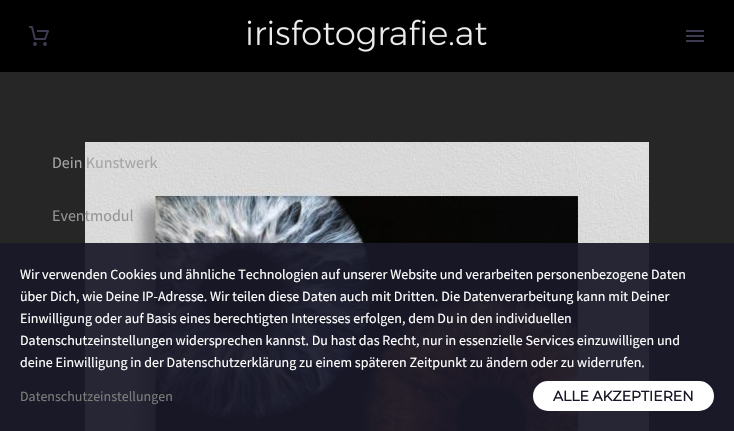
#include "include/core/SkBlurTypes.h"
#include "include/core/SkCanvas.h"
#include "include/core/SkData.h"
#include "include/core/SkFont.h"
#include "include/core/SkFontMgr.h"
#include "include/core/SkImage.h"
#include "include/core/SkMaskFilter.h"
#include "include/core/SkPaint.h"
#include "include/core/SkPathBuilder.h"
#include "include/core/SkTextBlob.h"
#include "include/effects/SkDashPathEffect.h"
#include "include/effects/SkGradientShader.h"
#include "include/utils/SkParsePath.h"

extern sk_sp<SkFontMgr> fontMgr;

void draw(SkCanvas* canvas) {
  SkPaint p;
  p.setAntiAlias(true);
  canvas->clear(SK_ColorBLACK);
  p.setColor(SkColorSetRGB(38, 38, 38));
  canvas->drawRect(SkRect::MakeLTRB(0, 72, 734, 431), p);
  canvas->drawImageRect(SkImages::DeferredFromEncodedData(SkData::MakeFromFileName("images/1.png")), SkRect::MakeLTRB(85, 142, 649, 431), SkSamplingOptions());
  canvas->drawImageRect(SkImages::DeferredFromEncodedData(SkData::MakeFromFileName("images/2.png")), SkRect::MakeLTRB(29, 26, 49, 46), SkSamplingOptions());
  canvas->drawImageRect(SkImages::DeferredFromEncodedData(SkData::MakeFromFileName("images/3.png")), SkRect::MakeLTRB(247, 19, 487, 52), SkSamplingOptions());
  p.setColor(SkColorSetRGB(60, 57, 80));
  canvas->drawRect(SkRect::MakeLTRB(686, 30, 704, 32), p);
  canvas->drawRect(SkRect::MakeLTRB(686, 35, 704, 37), p);
  canvas->drawRect(SkRect::MakeLTRB(686, 40, 704, 42), p);
  p.setColor(SkColorSetARGB(237, 24, 24, 40));
  canvas->drawRect(SkRect::MakeLTRB(0, 243, 734, 431), p);
  p.setColor(SK_ColorWHITE);
  canvas->drawRoundRect(SkRect::MakeLTRB(534, 382, 713, 410), 14, 14, p);
  p.setStyle(SkPaint::kStroke_Style);
  p.setStrokeWidth(2);
  canvas->drawRoundRect(SkRect::MakeLTRB(534, 382, 713, 410), 14, 14, p);
  SkFont font1(fontMgr->matchFamilyStyle("Source Sans Pro", SkFontStyle::Normal()), 16);
  font1.setSubpixel(true);
  p.setStyle(SkPaint::kFill_Style);
  p.setColor(SkColorSetRGB(165, 165, 165));
  canvas->drawString("Dein Kunstwerk", 52, 168, font1, p);
  p.setColor(SkColorSetRGB(149, 149, 149));
  canvas->drawString("Eventmodul", 52, 221, font1, p);
  SkFont font2(fontMgr->matchFamilyStyle("Source Sans Pro", SkFontStyle::Normal()), 14);
  font2.setSubpixel(true);
  p.setColor(SK_ColorWHITE);
  canvas->drawString("Wir verwenden Cookies und ähnliche Technologien auf unserer Website und verarbeiten personenbezogene Daten", 20, 279, font2, p);
  canvas->drawString("über Dich, wie Deine IP-Adresse. Wir teilen diese Daten auch mit Dritten. Die Datenverarbeitung kann mit Deiner", 20, 301, font2, p);
  canvas->drawString("Einwilligung oder auf Basis eines berechtigten Interesses erfolgen, dem Du in den individuellen", 20, 323, font2, p);
  canvas->drawString("Datenschutzeinstellungen widersprechen kannst. Du hast das Recht, nur in essenzielle Services einzuwilligen und", 20, 345, font2, p);
  canvas->drawString("deine Einwilligung in der Datenschutzerklärung zu einem späteren Zeitpunkt zu ändern oder zu widerrufen.", 20, 367, font2, p);
  p.setColor(SkColorSetRGB(124, 124, 124));
  canvas->drawString("Datenschutzeinstellungen", 20, 401, font2, p);
  SkFont font3(fontMgr->matchFamilyStyle("Montserrat", SkFontStyle::Bold()), 14);
  font3.setSubpixel(true);
  p.setColor(SkColorSetRGB(24, 24, 40));
  canvas->drawString("ALLE AKZEPTIEREN", 553, 401, font3, p);
}
